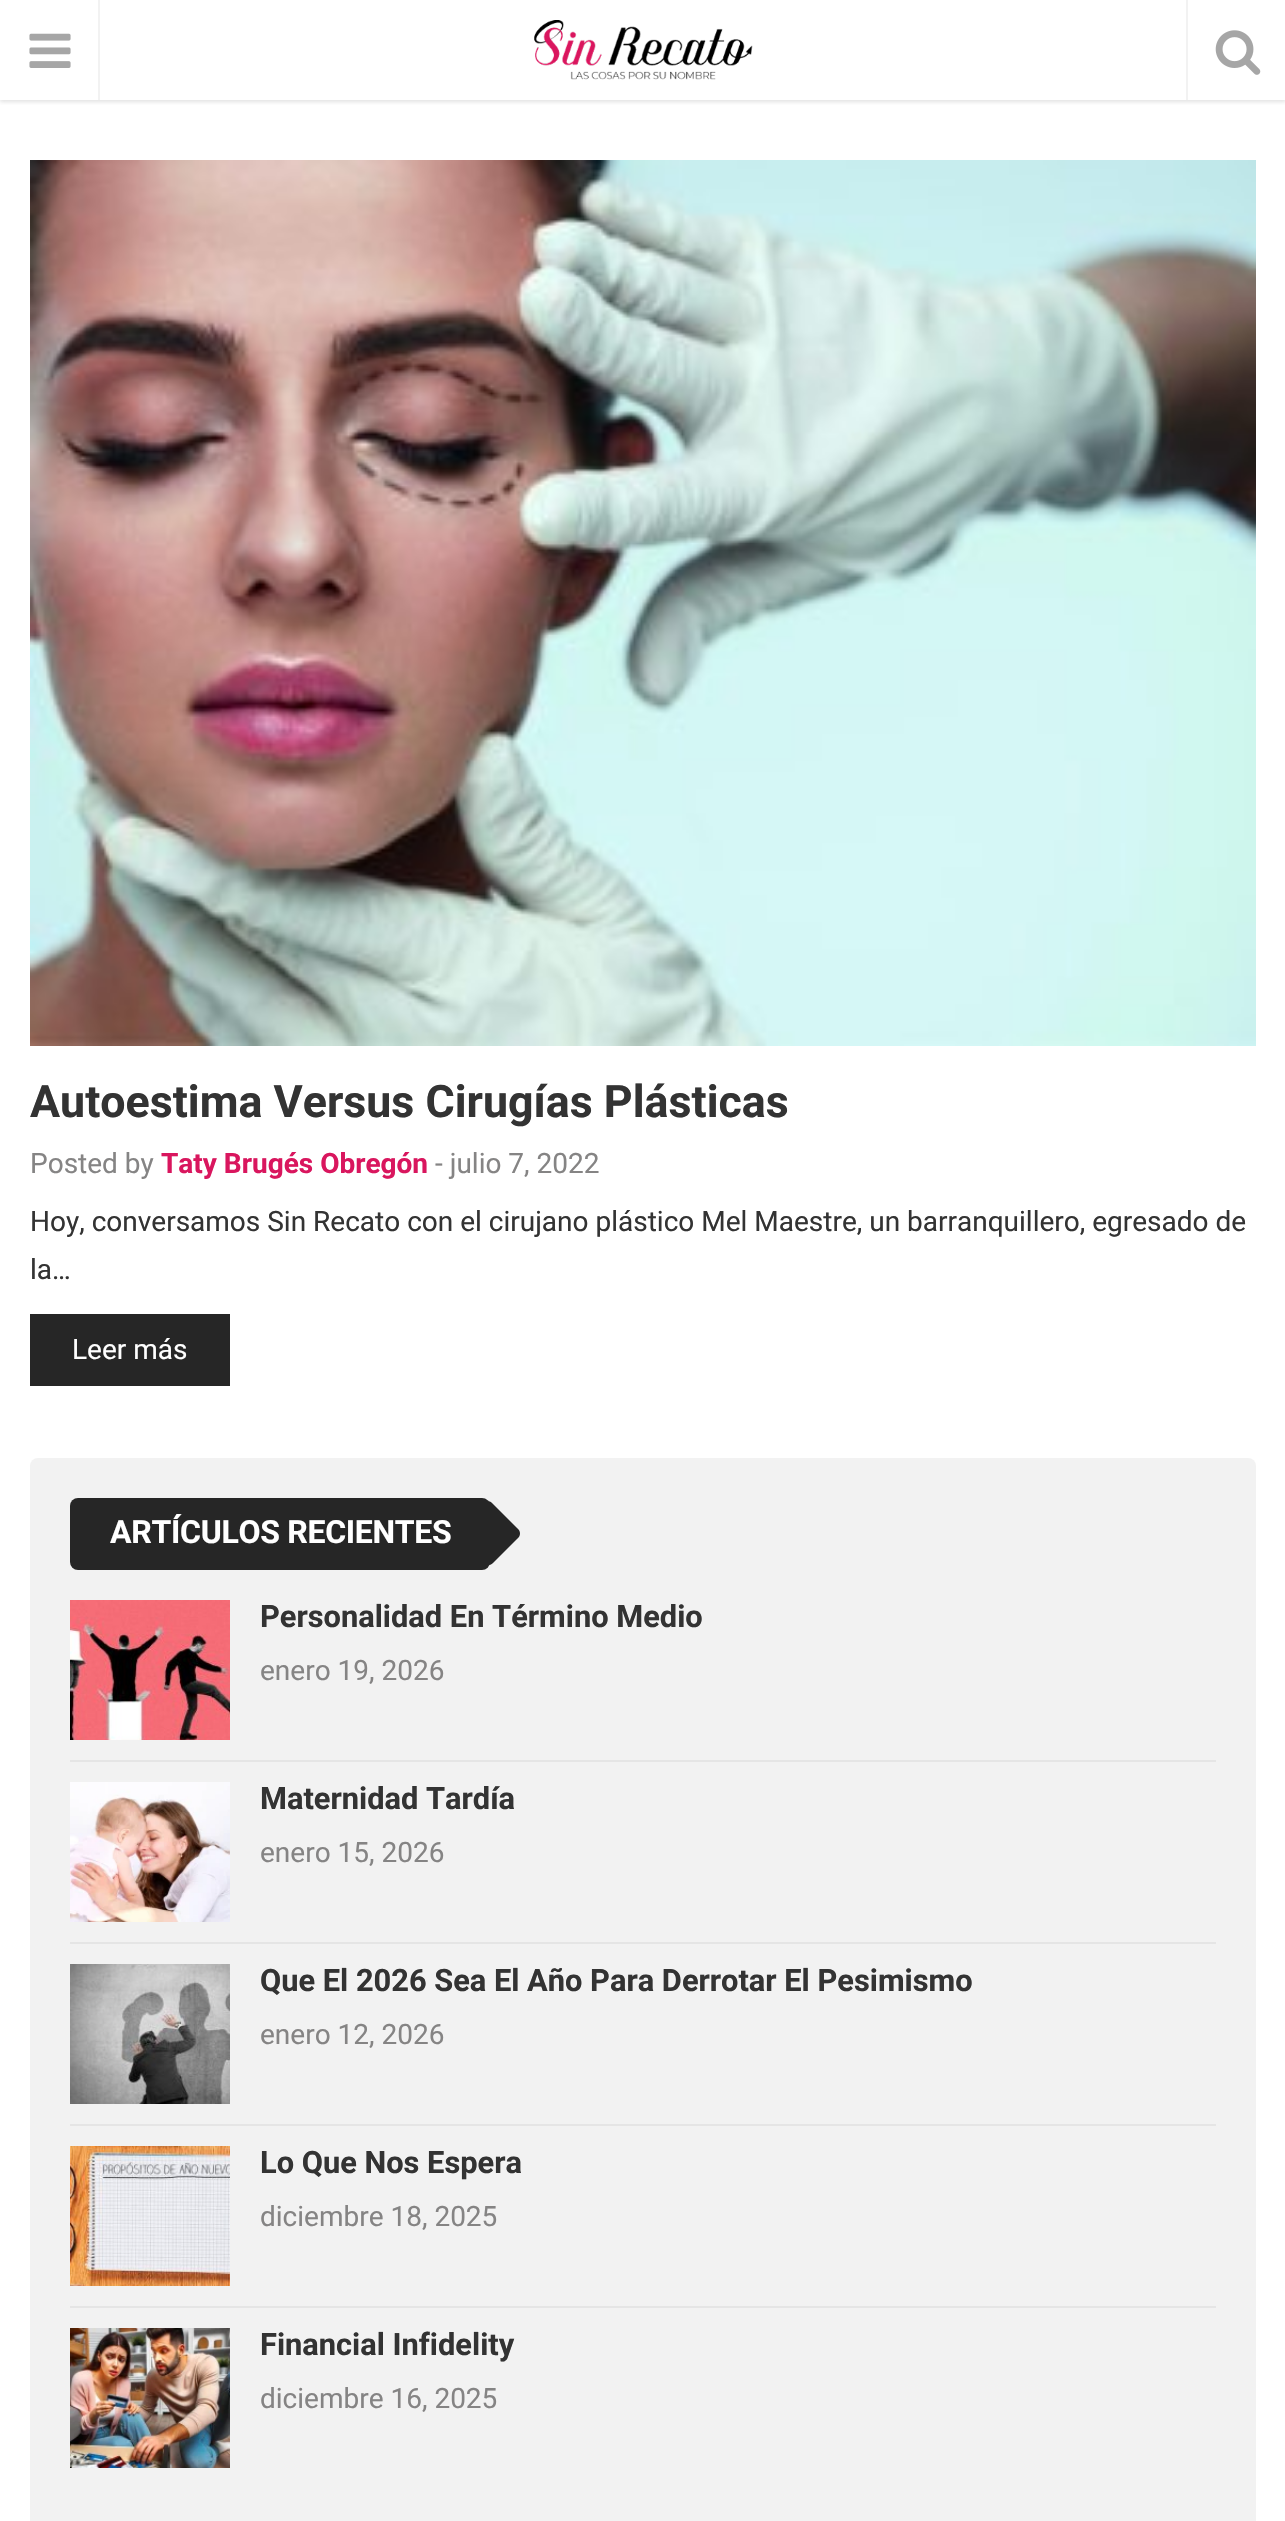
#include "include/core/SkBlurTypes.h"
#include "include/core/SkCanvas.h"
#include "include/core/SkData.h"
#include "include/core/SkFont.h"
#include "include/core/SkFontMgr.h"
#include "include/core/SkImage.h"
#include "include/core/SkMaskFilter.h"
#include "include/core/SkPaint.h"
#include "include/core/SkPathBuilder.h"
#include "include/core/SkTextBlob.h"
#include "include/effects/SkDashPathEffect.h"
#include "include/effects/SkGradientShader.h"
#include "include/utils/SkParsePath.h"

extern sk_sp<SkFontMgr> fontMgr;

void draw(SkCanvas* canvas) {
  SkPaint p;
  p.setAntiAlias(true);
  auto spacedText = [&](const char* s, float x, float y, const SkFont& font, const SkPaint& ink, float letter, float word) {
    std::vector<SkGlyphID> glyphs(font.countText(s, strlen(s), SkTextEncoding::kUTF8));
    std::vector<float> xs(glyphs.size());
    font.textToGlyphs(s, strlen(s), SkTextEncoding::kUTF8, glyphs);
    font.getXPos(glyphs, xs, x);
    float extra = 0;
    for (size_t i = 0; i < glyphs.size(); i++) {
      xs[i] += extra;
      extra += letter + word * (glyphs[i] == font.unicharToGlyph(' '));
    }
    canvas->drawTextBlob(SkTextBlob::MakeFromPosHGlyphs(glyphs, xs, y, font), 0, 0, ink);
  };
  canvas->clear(SK_ColorWHITE);
  canvas->save();
  canvas->clipRect(SkRect::MakeLTRB(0, 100, 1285, 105));
  p.setColor(SkColorSetARGB(51, 108, 108, 108));
  p.setMaskFilter(SkMaskFilter::MakeBlur(kNormal_SkBlurStyle, 2));
  canvas->drawRect(SkRect::MakeLTRB(0, 2, 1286, 102), p);
  p.setMaskFilter(nullptr);
  canvas->restore();
  p.setColor(SkColorSetRGB(242, 242, 242));
  canvas->drawRect(SkRect::MakeLTRB(98, 0, 100, 100), p);
  canvas->drawImageRect(SkImages::DeferredFromEncodedData(SkData::MakeFromFileName("images/1.png")), SkRect::MakeLTRB(29, 33, 71, 68), SkSamplingOptions());
  canvas->drawImageRect(SkImages::DeferredFromEncodedData(SkData::MakeFromFileName("images/2.png")), SkRect::MakeLTRB(534, 20, 753, 80), SkSamplingOptions());
  canvas->drawRect(SkRect::MakeLTRB(1186, 0, 1188, 100), p);
  canvas->drawImageRect(SkImages::DeferredFromEncodedData(SkData::MakeFromFileName("images/3.png")), SkRect::MakeLTRB(1215, 30, 1261, 75), SkSamplingOptions());
  canvas->drawImageRect(SkImages::DeferredFromEncodedData(SkData::MakeFromFileName("images/4.png")), SkRect::MakeLTRB(30, 160, 1256, 1046), SkSamplingOptions());
  p.setColor(SkColorSetRGB(38, 38, 38));
  canvas->drawRect(SkRect::MakeLTRB(30, 1314, 230, 1386), p);
  p.setColor(SkColorSetRGB(242, 242, 242));
  canvas->drawRoundRect(SkRect::MakeLTRB(30, 1458, 1256, 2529), 8, 8, p);
  p.setColor(SkColorSetRGB(38, 38, 38));
  canvas->drawRoundRect(SkRect::MakeLTRB(70, 1498, 490, 1570), 8, 8, p);
  canvas->drawPath(SkPathBuilder().moveTo(458, 1528).lineTo(482, 1504).cubicTo(485, 1500, 490, 1500, 493, 1504).lineTo(517, 1528).cubicTo(521, 1531, 521, 1536, 517, 1539).lineTo(493, 1563).cubicTo(490, 1566, 485, 1566, 482, 1563).lineTo(458, 1539).cubicTo(455, 1536, 455, 1531, 458, 1528).close().detach(), p);
  p.setColor(SkColorSetRGB(229, 229, 229));
  canvas->drawRect(SkRect::MakeLTRB(70, 1760, 1216, 1762), p);
  canvas->drawImageRect(SkImages::DeferredFromEncodedData(SkData::MakeFromFileName("images/5.png")), SkRect::MakeLTRB(70, 1600, 230, 1740), SkSamplingOptions());
  canvas->drawRect(SkRect::MakeLTRB(70, 1942, 1216, 1944), p);
  canvas->drawImageRect(SkImages::DeferredFromEncodedData(SkData::MakeFromFileName("images/6.png")), SkRect::MakeLTRB(70, 1782, 230, 1922), SkSamplingOptions());
  canvas->drawRect(SkRect::MakeLTRB(70, 2124, 1216, 2126), p);
  canvas->drawImageRect(SkImages::DeferredFromEncodedData(SkData::MakeFromFileName("images/7.png")), SkRect::MakeLTRB(70, 1964, 230, 2104), SkSamplingOptions());
  canvas->drawRect(SkRect::MakeLTRB(70, 2306, 1216, 2308), p);
  canvas->drawImageRect(SkImages::DeferredFromEncodedData(SkData::MakeFromFileName("images/8.png")), SkRect::MakeLTRB(70, 2146, 230, 2286), SkSamplingOptions());
  canvas->drawImageRect(SkImages::DeferredFromEncodedData(SkData::MakeFromFileName("images/9.png")), SkRect::MakeLTRB(70, 2328, 230, 2468), SkSamplingOptions());
  SkFont font1(fontMgr->matchFamilyStyle("Roboto", SkFontStyle::Bold()), 44.75f);
  font1.setSubpixel(true);
  p.setColor(SkColorSetRGB(51, 51, 51));
  canvas->drawString("Autoestima Versus Cirugías Plásticas", 30, 1117, font1, p);
  SkFont font2(fontMgr->matchFamilyStyle("Roboto", SkFontStyle::Normal()), 28);
  font2.setSubpixel(true);
  p.setColor(SkColorSetRGB(133, 132, 132));
  canvas->drawString("Posted by", 30, 1173, font2, p);
  SkFont font3(fontMgr->matchFamilyStyle("Roboto", SkFontStyle::Bold()), 28);
  font3.setSubpixel(true);
  p.setColor(SkColorSetRGB(217, 22, 94));
  canvas->drawString("Taty Brugés Obregón", 161, 1173, font3, p);
  p.setColor(SkColorSetRGB(133, 132, 132));
  canvas->drawString("- julio 7, 2022", 435, 1173, font2, p);
  p.setColor(SkColorSetRGB(51, 51, 51));
  canvas->drawString("Hoy, conversamos Sin Recato con el cirujano plástico Mel Maestre, un barranquillero, egresado de", 30, 1231, font2, p);
  canvas->drawString("la…", 30, 1279, font2, p);
  p.setColor(SK_ColorWHITE);
  canvas->drawString("Leer más", 72, 1359, font2, p);
  SkFont font4(fontMgr->matchFamilyStyle("Roboto", SkFontStyle::Bold()), 32);
  font4.setSubpixel(true);
  spacedText("ARTÍCULOS RECIENTES", 110, 1543, font4, p, -0.3f, 0);
  SkFont font5(fontMgr->matchFamilyStyle("Roboto", SkFontStyle::Bold()), 30.8f);
  font5.setSubpixel(true);
  p.setColor(SkColorSetRGB(51, 51, 51));
  canvas->drawString("Personalidad En Término Medio", 260, 1627, font5, p);
  p.setColor(SkColorSetRGB(133, 132, 132));
  canvas->drawString("enero 19, 2026", 260, 1680, font2, p);
  p.setColor(SkColorSetRGB(51, 51, 51));
  canvas->drawString("Maternidad Tardía", 260, 1809, font5, p);
  p.setColor(SkColorSetRGB(133, 132, 132));
  canvas->drawString("enero 15, 2026", 260, 1862, font2, p);
  p.setColor(SkColorSetRGB(51, 51, 51));
  canvas->drawString("Que El 2026 Sea El Año Para Derrotar El Pesimismo", 260, 1991, font5, p);
  p.setColor(SkColorSetRGB(133, 132, 132));
  canvas->drawString("enero 12, 2026", 260, 2044, font2, p);
  p.setColor(SkColorSetRGB(51, 51, 51));
  canvas->drawString("Lo Que Nos Espera", 260, 2173, font5, p);
  p.setColor(SkColorSetRGB(133, 132, 132));
  canvas->drawString("diciembre 18, 2025", 260, 2226, font2, p);
  p.setColor(SkColorSetRGB(51, 51, 51));
  canvas->drawString("Financial Infidelity", 260, 2355, font5, p);
  p.setColor(SkColorSetRGB(133, 132, 132));
  canvas->drawString("diciembre 16, 2025", 260, 2408, font2, p);
}
